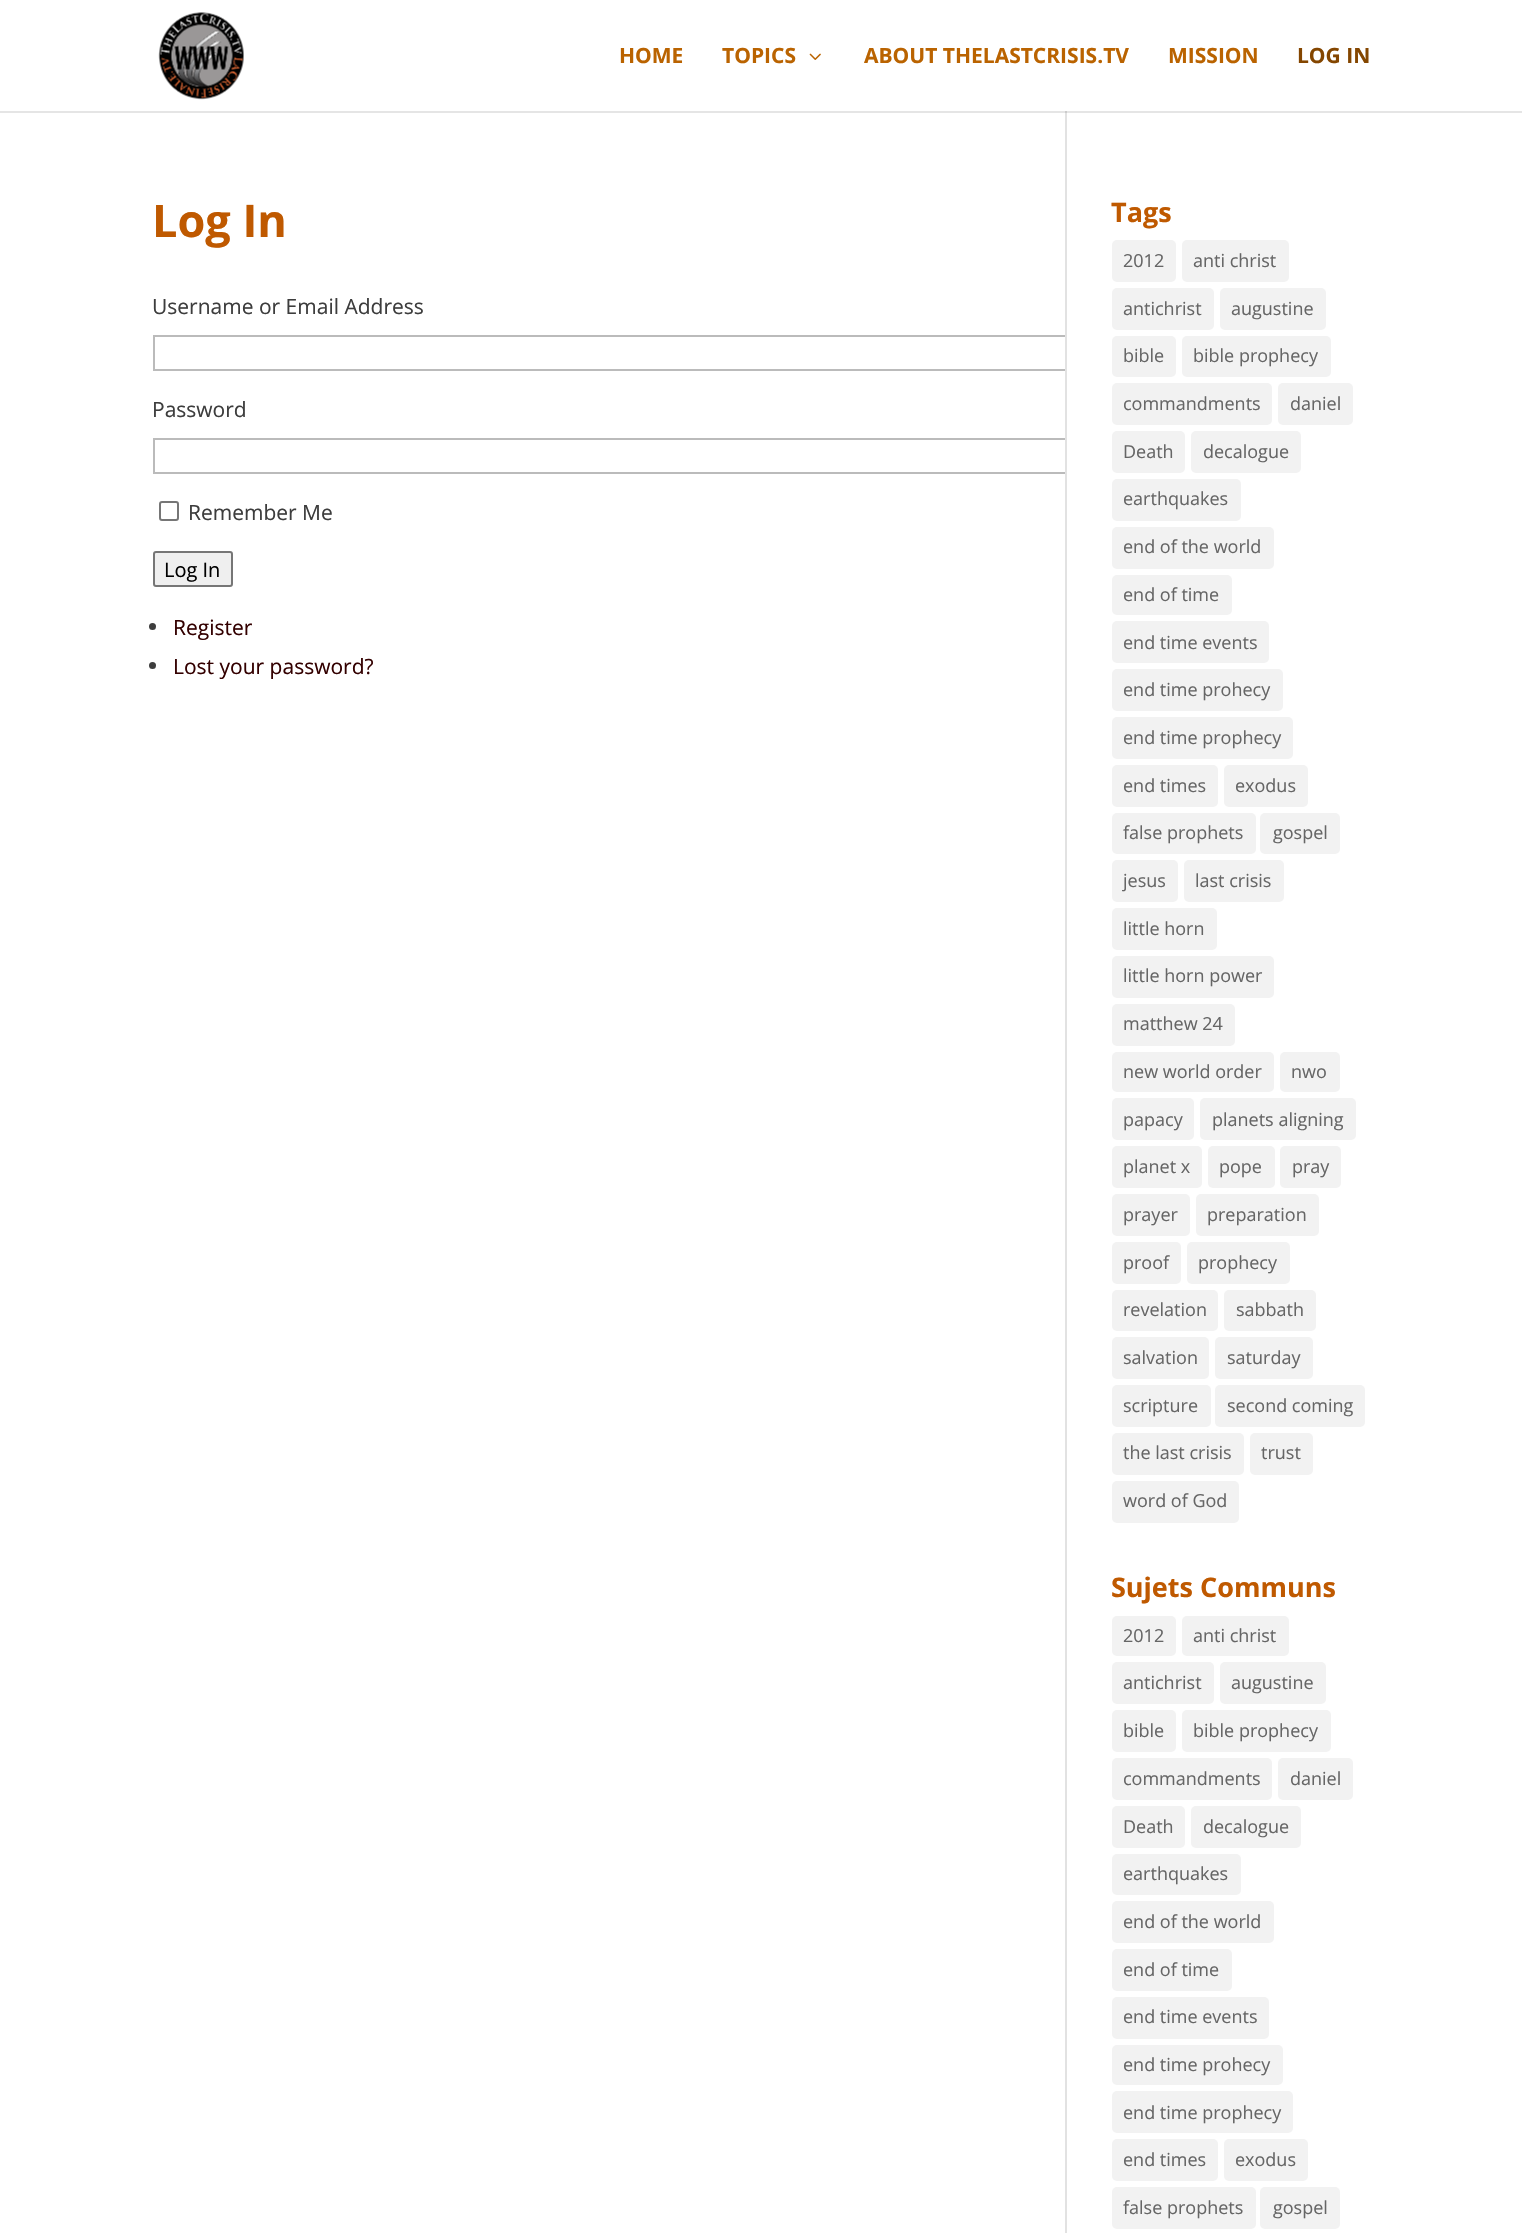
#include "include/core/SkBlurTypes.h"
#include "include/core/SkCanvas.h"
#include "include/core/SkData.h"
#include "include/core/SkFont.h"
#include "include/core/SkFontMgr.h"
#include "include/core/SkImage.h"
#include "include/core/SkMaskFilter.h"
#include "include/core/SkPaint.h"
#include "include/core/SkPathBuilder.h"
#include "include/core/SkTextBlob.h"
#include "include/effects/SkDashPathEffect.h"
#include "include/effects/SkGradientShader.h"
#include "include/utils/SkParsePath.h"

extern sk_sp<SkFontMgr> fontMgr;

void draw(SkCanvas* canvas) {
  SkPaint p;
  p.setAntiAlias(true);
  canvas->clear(SK_ColorWHITE);
  p.setStyle(SkPaint::kStroke_Style);
  p.setStrokeWidth(2);
  p.setColor(SkColorSetRGB(187, 187, 187));
  canvas->drawRect(SkRect::MakeLTRB(154, 336, 1066, 370), p);
  canvas->drawRect(SkRect::MakeLTRB(154, 439, 1066, 473), p);
  p.setStyle(SkPaint::kFill_Style);
  p.setColor(SkColorSetRGB(226, 226, 226));
  canvas->drawRect(SkRect::MakeLTRB(1065, 111, 1067, 2233), p);
  p.setColor(SkColorSetARGB(26, 0, 0, 0));
  canvas->drawPath(SkPathBuilder().moveTo(0, 111).lineTo(0, 113).lineTo(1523, 113).lineTo(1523, 2).lineTo(1522, 2).lineTo(1522, 111).close().detach(), p);
  canvas->drawImageRect(SkImages::DeferredFromEncodedData(SkData::MakeFromFileName("images/1.png")), SkRect::MakeLTRB(158, 12, 244, 100), SkSamplingOptions());
  canvas->drawImageRect(SkImages::DeferredFromEncodedData(SkData::MakeFromFileName("images/2.png")), SkRect::MakeLTRB(809, 53, 821, 60), SkSamplingOptions());
  p.setStyle(SkPaint::kStroke_Style);
  p.setColor(SkColorSetRGB(118, 118, 118));
  canvas->drawRoundRect(SkRect::MakeLTRB(160, 502, 178, 520), 2, 2, p);
  p.setStyle(SkPaint::kFill_Style);
  p.setColor(SkColorSetRGB(239, 239, 239));
  canvas->drawRoundRect(SkRect::MakeLTRB(154, 552, 232, 586), 2, 2, p);
  p.setStyle(SkPaint::kStroke_Style);
  p.setColor(SkColorSetRGB(118, 118, 118));
  canvas->drawRoundRect(SkRect::MakeLTRB(154, 552, 232, 586), 2, 2, p);
  p.setStyle(SkPaint::kFill_Style);
  p.setColor(SkColorSetRGB(61, 61, 61));
  canvas->drawCircle(152.5f, 626.5f, 3.5f, p);
  canvas->drawCircle(152.5f, 665.5f, 3.5f, p);
  p.setColor(SkColorSetRGB(242, 242, 242));
  canvas->drawRoundRect(SkRect::MakeLTRB(1112, 240, 1176, 282), 5, 5, p);
  canvas->drawRoundRect(SkRect::MakeLTRB(1182, 240, 1289, 282), 5, 5, p);
  canvas->drawRoundRect(SkRect::MakeLTRB(1112, 288, 1214, 330), 5, 5, p);
  canvas->drawRoundRect(SkRect::MakeLTRB(1220, 288, 1326, 330), 5, 5, p);
  canvas->drawRoundRect(SkRect::MakeLTRB(1112, 336, 1176, 377), 5, 5, p);
  canvas->drawRoundRect(SkRect::MakeLTRB(1182, 336, 1331, 377), 5, 5, p);
  canvas->drawRoundRect(SkRect::MakeLTRB(1112, 383, 1272, 425), 5, 5, p);
  canvas->drawRoundRect(SkRect::MakeLTRB(1278, 383, 1353, 425), 5, 5, p);
  canvas->drawRoundRect(SkRect::MakeLTRB(1112, 431, 1185, 473), 5, 5, p);
  canvas->drawRoundRect(SkRect::MakeLTRB(1191, 431, 1301, 473), 5, 5, p);
  canvas->drawRoundRect(SkRect::MakeLTRB(1112, 479, 1241, 521), 5, 5, p);
  canvas->drawRoundRect(SkRect::MakeLTRB(1112, 527, 1274, 569), 5, 5, p);
  canvas->drawRoundRect(SkRect::MakeLTRB(1112, 575, 1232, 615), 5, 5, p);
  canvas->drawRoundRect(SkRect::MakeLTRB(1112, 621, 1269, 663), 5, 5, p);
  canvas->drawRoundRect(SkRect::MakeLTRB(1112, 669, 1283, 711), 5, 5, p);
  canvas->drawRoundRect(SkRect::MakeLTRB(1112, 717, 1293, 759), 5, 5, p);
  canvas->drawRoundRect(SkRect::MakeLTRB(1112, 765, 1218, 807), 5, 5, p);
  canvas->drawRoundRect(SkRect::MakeLTRB(1224, 765, 1308, 807), 5, 5, p);
  canvas->drawRoundRect(SkRect::MakeLTRB(1112, 813, 1256, 854), 5, 5, p);
  canvas->drawRoundRect(SkRect::MakeLTRB(1260, 813, 1340, 854), 5, 5, p);
  canvas->drawRoundRect(SkRect::MakeLTRB(1112, 860, 1178, 902), 5, 5, p);
  canvas->drawRoundRect(SkRect::MakeLTRB(1184, 860, 1284, 902), 5, 5, p);
  canvas->drawRoundRect(SkRect::MakeLTRB(1112, 908, 1217, 950), 5, 5, p);
  canvas->drawRoundRect(SkRect::MakeLTRB(1112, 956, 1274, 998), 5, 5, p);
  canvas->drawRoundRect(SkRect::MakeLTRB(1112, 1004, 1235, 1046), 5, 5, p);
  canvas->drawRoundRect(SkRect::MakeLTRB(1112, 1052, 1274, 1092), 5, 5, p);
  canvas->drawRoundRect(SkRect::MakeLTRB(1280, 1052, 1340, 1092), 5, 5, p);
  canvas->drawRoundRect(SkRect::MakeLTRB(1112, 1098, 1194, 1140), 5, 5, p);
  canvas->drawRoundRect(SkRect::MakeLTRB(1200, 1098, 1356, 1140), 5, 5, p);
  canvas->drawRoundRect(SkRect::MakeLTRB(1112, 1146, 1202, 1188), 5, 5, p);
  canvas->drawRoundRect(SkRect::MakeLTRB(1208, 1146, 1275, 1188), 5, 5, p);
  canvas->drawRoundRect(SkRect::MakeLTRB(1280, 1146, 1341, 1188), 5, 5, p);
  canvas->drawRoundRect(SkRect::MakeLTRB(1112, 1194, 1190, 1236), 5, 5, p);
  canvas->drawRoundRect(SkRect::MakeLTRB(1196, 1194, 1319, 1236), 5, 5, p);
  canvas->drawRoundRect(SkRect::MakeLTRB(1112, 1242, 1181, 1284), 5, 5, p);
  canvas->drawRoundRect(SkRect::MakeLTRB(1187, 1242, 1290, 1284), 5, 5, p);
  canvas->drawRoundRect(SkRect::MakeLTRB(1112, 1290, 1218, 1331), 5, 5, p);
  canvas->drawRoundRect(SkRect::MakeLTRB(1224, 1290, 1316, 1331), 5, 5, p);
  canvas->drawRoundRect(SkRect::MakeLTRB(1112, 1337, 1209, 1379), 5, 5, p);
  canvas->drawRoundRect(SkRect::MakeLTRB(1215, 1337, 1313, 1379), 5, 5, p);
  canvas->drawRoundRect(SkRect::MakeLTRB(1112, 1385, 1211, 1427), 5, 5, p);
  canvas->drawRoundRect(SkRect::MakeLTRB(1215, 1385, 1365, 1427), 5, 5, p);
  canvas->drawRoundRect(SkRect::MakeLTRB(1112, 1433, 1244, 1475), 5, 5, p);
  canvas->drawRoundRect(SkRect::MakeLTRB(1250, 1433, 1313, 1475), 5, 5, p);
  canvas->drawRoundRect(SkRect::MakeLTRB(1112, 1481, 1239, 1523), 5, 5, p);
  canvas->drawRoundRect(SkRect::MakeLTRB(1112, 1616, 1176, 1656), 5, 5, p);
  canvas->drawRoundRect(SkRect::MakeLTRB(1182, 1616, 1289, 1656), 5, 5, p);
  canvas->drawRoundRect(SkRect::MakeLTRB(1112, 1662, 1214, 1704), 5, 5, p);
  canvas->drawRoundRect(SkRect::MakeLTRB(1220, 1662, 1326, 1704), 5, 5, p);
  canvas->drawRoundRect(SkRect::MakeLTRB(1112, 1710, 1176, 1752), 5, 5, p);
  canvas->drawRoundRect(SkRect::MakeLTRB(1182, 1710, 1331, 1752), 5, 5, p);
  canvas->drawRoundRect(SkRect::MakeLTRB(1112, 1758, 1272, 1800), 5, 5, p);
  canvas->drawRoundRect(SkRect::MakeLTRB(1278, 1758, 1353, 1800), 5, 5, p);
  canvas->drawRoundRect(SkRect::MakeLTRB(1112, 1806, 1185, 1848), 5, 5, p);
  canvas->drawRoundRect(SkRect::MakeLTRB(1191, 1806, 1301, 1848), 5, 5, p);
  canvas->drawRoundRect(SkRect::MakeLTRB(1112, 1854, 1241, 1895), 5, 5, p);
  canvas->drawRoundRect(SkRect::MakeLTRB(1112, 1901, 1274, 1943), 5, 5, p);
  canvas->drawRoundRect(SkRect::MakeLTRB(1112, 1949, 1232, 1991), 5, 5, p);
  canvas->drawRoundRect(SkRect::MakeLTRB(1112, 1997, 1269, 2039), 5, 5, p);
  canvas->drawRoundRect(SkRect::MakeLTRB(1112, 2045, 1283, 2085), 5, 5, p);
  canvas->drawRoundRect(SkRect::MakeLTRB(1112, 2091, 1293, 2133), 5, 5, p);
  canvas->drawRoundRect(SkRect::MakeLTRB(1112, 2139, 1218, 2181), 5, 5, p);
  canvas->drawRoundRect(SkRect::MakeLTRB(1224, 2139, 1308, 2181), 5, 5, p);
  canvas->drawRoundRect(SkRect::MakeLTRB(1112, 2187, 1256, 2229), 5, 5, p);
  canvas->drawRoundRect(SkRect::MakeLTRB(1260, 2187, 1340, 2229), 5, 5, p);
  SkFont font1(fontMgr->matchFamilyStyle("Open Sans", SkFontStyle::Bold()), 21);
  font1.setSubpixel(true);
  p.setColor(SkColorSetRGB(186, 99, 0));
  canvas->drawString("HOME", 619, 63, font1, p);
  canvas->drawString("TOPICS", 722, 63, font1, p);
  canvas->drawString("ABOUT THELASTCRISIS.TV", 864, 63, font1, p);
  canvas->drawString("MISSION", 1168, 63, font1, p);
  p.setColor(SkColorSetRGB(132, 70, 0));
  canvas->drawString("LOG IN", 1297, 63, font1, p);
  SkFont font2(fontMgr->matchFamilyStyle("Open Sans", SkFontStyle::Bold()), 45);
  font2.setSubpixel(true);
  p.setColor(SkColorSetRGB(191, 89, 0));
  canvas->drawString("Log In", 152, 237, font2, p);
  SkFont font3(fontMgr->matchFamilyStyle("Open Sans", SkFontStyle::Normal()), 21);
  font3.setSubpixel(true);
  p.setColor(SkColorSetRGB(61, 61, 61));
  canvas->drawString("Username or Email Address", 152, 314, font3, p);
  canvas->drawString("Password", 152, 417, font3, p);
  canvas->drawString("Remember Me", 188, 520, font3, p);
  SkFont font4(fontMgr->matchFamilyStyle("Open Sans", SkFontStyle::Normal()), 20);
  font4.setSubpixel(true);
  p.setColor(SK_ColorBLACK);
  canvas->drawString("Log In", 164, 577, font4, p);
  p.setColor(SkColorSetRGB(51, 0, 0));
  canvas->drawString("Register", 173, 635, font3, p);
  canvas->drawString("Lost your password?", 173, 674, font3, p);
  SkFont font5(fontMgr->matchFamilyStyle("Open Sans", SkFontStyle::Bold()), 27);
  font5.setSubpixel(true);
  p.setColor(SkColorSetRGB(191, 89, 0));
  canvas->drawString("Tags", 1111, 222, font5, p);
  SkFont font6(fontMgr->matchFamilyStyle("Open Sans", SkFontStyle::Normal()), 18);
  font6.setSubpixel(true);
  p.setColor(SkColorSetRGB(102, 102, 102));
  canvas->drawString("2012", 1123, 267, font6, p);
  canvas->drawString("anti christ", 1193, 267, font6, p);
  canvas->drawString("antichrist", 1123, 315, font6, p);
  canvas->drawString("augustine", 1231, 315, font6, p);
  canvas->drawString("bible", 1123, 362, font6, p);
  canvas->drawString("bible prophecy", 1193, 362, font6, p);
  canvas->drawString("commandments", 1123, 410, font6, p);
  canvas->drawString("daniel", 1290, 410, font6, p);
  canvas->drawString("Death", 1123, 458, font6, p);
  canvas->drawString("decalogue", 1203, 458, font6, p);
  canvas->drawString("earthquakes", 1123, 505, font6, p);
  canvas->drawString("end of the world", 1123, 553, font6, p);
  canvas->drawString("end of time", 1123, 601, font6, p);
  canvas->drawString("end time events", 1123, 649, font6, p);
  canvas->drawString("end time prohecy", 1123, 696, font6, p);
  canvas->drawString("end time prophecy", 1123, 744, font6, p);
  canvas->drawString("end times", 1123, 792, font6, p);
  canvas->drawString("exodus", 1235, 792, font6, p);
  canvas->drawString("false prophets", 1123, 839, font6, p);
  canvas->drawString("gospel", 1273, 839, font6, p);
  canvas->drawString("jesus", 1123, 887, font6, p);
  canvas->drawString("last crisis", 1195, 887, font6, p);
  canvas->drawString("little horn", 1123, 935, font6, p);
  canvas->drawString("little horn power", 1123, 982, font6, p);
  canvas->drawString("matthew 24", 1123, 1030, font6, p);
  canvas->drawString("new world order", 1123, 1078, font6, p);
  canvas->drawString("nwo", 1291, 1078, font6, p);
  canvas->drawString("papacy", 1123, 1126, font6, p);
  canvas->drawString("planets aligning", 1212, 1126, font6, p);
  canvas->drawString("planet x", 1123, 1173, font6, p);
  canvas->drawString("pope", 1219, 1173, font6, p);
  canvas->drawString("pray", 1292, 1173, font6, p);
  canvas->drawString("prayer", 1123, 1221, font6, p);
  canvas->drawString("preparation", 1207, 1221, font6, p);
  canvas->drawString("proof", 1123, 1269, font6, p);
  canvas->drawString("prophecy", 1198, 1269, font6, p);
  canvas->drawString("revelation", 1123, 1316, font6, p);
  canvas->drawString("sabbath", 1236, 1316, font6, p);
  canvas->drawString("salvation", 1123, 1364, font6, p);
  canvas->drawString("saturday", 1227, 1364, font6, p);
  canvas->drawString("scripture", 1123, 1412, font6, p);
  canvas->drawString("second coming", 1227, 1412, font6, p);
  canvas->drawString("the last crisis", 1123, 1459, font6, p);
  canvas->drawString("trust", 1261, 1459, font6, p);
  canvas->drawString("word of God", 1123, 1507, font6, p);
  p.setColor(SkColorSetRGB(191, 89, 0));
  canvas->drawString("Sujets Communs", 1111, 1597, font5, p);
  p.setColor(SkColorSetRGB(102, 102, 102));
  canvas->drawString("2012", 1123, 1642, font6, p);
  canvas->drawString("anti christ", 1193, 1642, font6, p);
  canvas->drawString("antichrist", 1123, 1689, font6, p);
  canvas->drawString("augustine", 1231, 1689, font6, p);
  canvas->drawString("bible", 1123, 1737, font6, p);
  canvas->drawString("bible prophecy", 1193, 1737, font6, p);
  canvas->drawString("commandments", 1123, 1785, font6, p);
  canvas->drawString("daniel", 1290, 1785, font6, p);
  canvas->drawString("Death", 1123, 1833, font6, p);
  canvas->drawString("decalogue", 1203, 1833, font6, p);
  canvas->drawString("earthquakes", 1123, 1880, font6, p);
  canvas->drawString("end of the world", 1123, 1928, font6, p);
  canvas->drawString("end of time", 1123, 1976, font6, p);
  canvas->drawString("end time events", 1123, 2023, font6, p);
  canvas->drawString("end time prohecy", 1123, 2071, font6, p);
  canvas->drawString("end time prophecy", 1123, 2119, font6, p);
  canvas->drawString("end times", 1123, 2166, font6, p);
  canvas->drawString("exodus", 1235, 2166, font6, p);
  canvas->drawString("false prophets", 1123, 2214, font6, p);
  canvas->drawString("gospel", 1273, 2214, font6, p);
}
